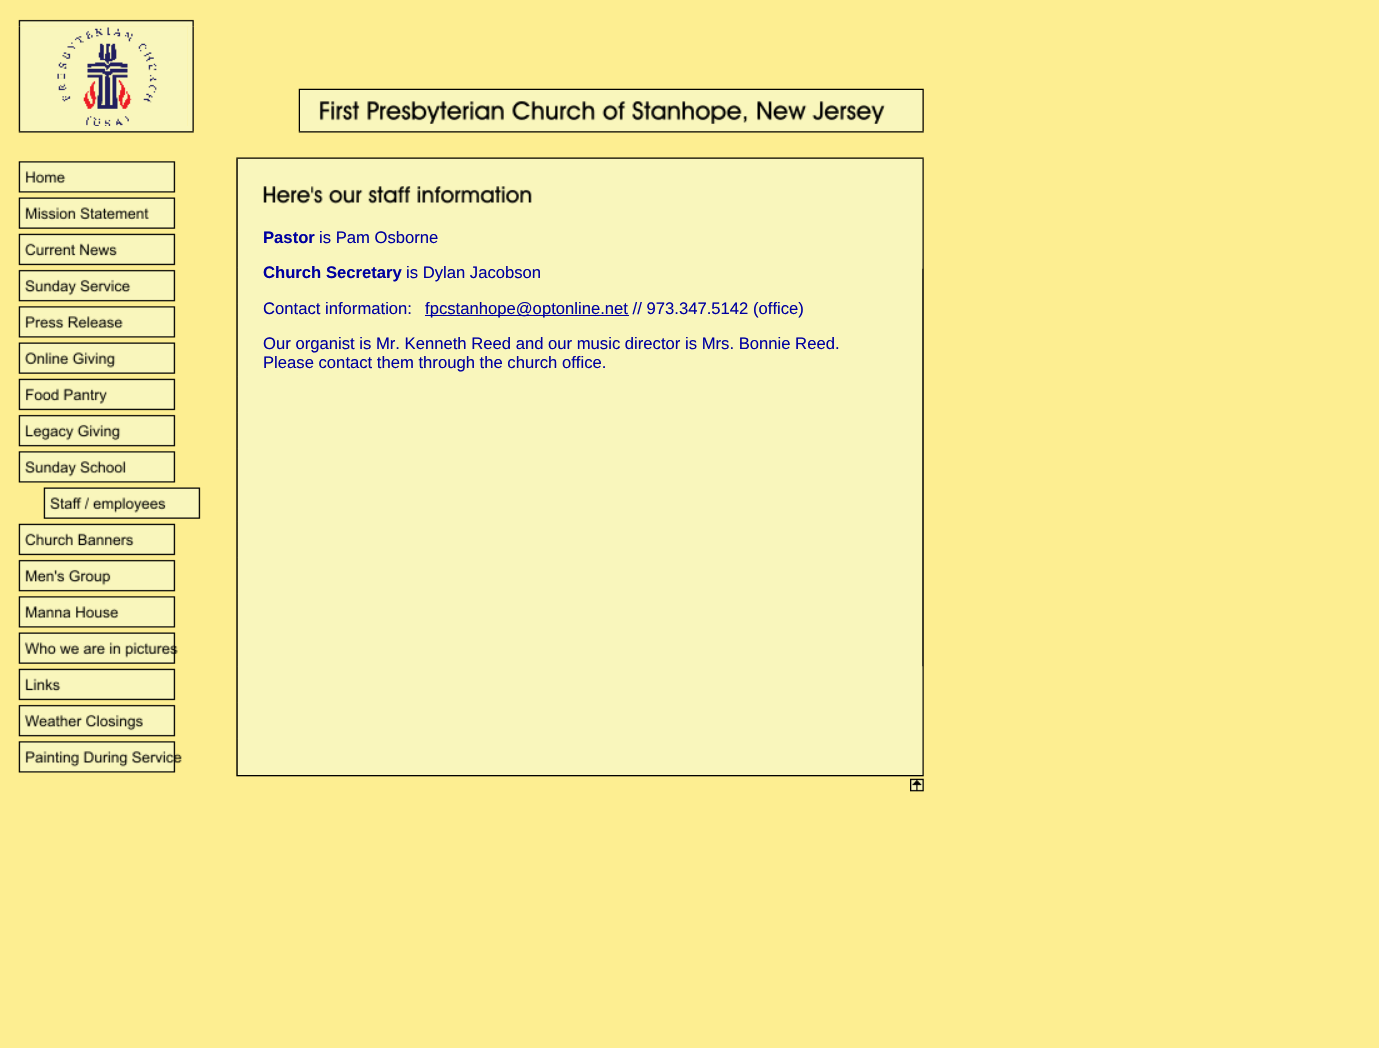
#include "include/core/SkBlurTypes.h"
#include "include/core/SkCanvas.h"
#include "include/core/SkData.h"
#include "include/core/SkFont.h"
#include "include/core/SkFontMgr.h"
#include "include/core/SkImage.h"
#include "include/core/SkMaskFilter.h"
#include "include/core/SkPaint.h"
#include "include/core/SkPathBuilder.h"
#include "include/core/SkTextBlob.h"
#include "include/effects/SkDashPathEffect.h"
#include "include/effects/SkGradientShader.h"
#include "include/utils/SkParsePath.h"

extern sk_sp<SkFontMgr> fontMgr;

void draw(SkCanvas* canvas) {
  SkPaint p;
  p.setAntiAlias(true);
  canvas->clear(SkColorSetRGB(253, 238, 145));
  canvas->drawImageRect(SkImages::DeferredFromEncodedData(SkData::MakeFromFileName("images/1.png")), SkRect::MakeLTRB(18, 19, 194, 27), SkSamplingOptions());
  canvas->drawImageRect(SkImages::DeferredFromEncodedData(SkData::MakeFromFileName("images/2.png")), SkRect::MakeLTRB(18, 26, 25, 132), SkSamplingOptions());
  canvas->drawImageRect(SkImages::DeferredFromEncodedData(SkData::MakeFromFileName("images/3.png")), SkRect::MakeLTRB(25, 26, 188, 126), SkSamplingOptions());
  canvas->drawImageRect(SkImages::DeferredFromEncodedData(SkData::MakeFromFileName("images/4.png")), SkRect::MakeLTRB(187, 26, 924, 90), SkSamplingOptions());
  canvas->drawImageRect(SkImages::DeferredFromEncodedData(SkData::MakeFromFileName("images/5.png")), SkRect::MakeLTRB(187, 90, 300, 132), SkSamplingOptions());
  p.setColor(SkColorSetRGB(249, 246, 188));
  canvas->drawRect(SkRect::MakeLTRB(25, 126, 188, 132), p);
  canvas->drawImageRect(SkImages::DeferredFromEncodedData(SkData::MakeFromFileName("images/6.png")), SkRect::MakeLTRB(300, 90, 923, 132), SkSamplingOptions());
  canvas->drawImageRect(SkImages::DeferredFromEncodedData(SkData::MakeFromFileName("images/7.png")), SkRect::MakeLTRB(922, 90, 924, 132), SkSamplingOptions());
  canvas->drawImageRect(SkImages::DeferredFromEncodedData(SkData::MakeFromFileName("images/9.png")), SkRect::MakeLTRB(236, 158, 238, 775), SkSamplingOptions());
  canvas->drawRect(SkRect::MakeLTRB(238, 159, 923, 775), p);
  canvas->drawImageRect(SkImages::DeferredFromEncodedData(SkData::MakeFromFileName("images/28.png")), SkRect::MakeLTRB(922, 158, 924, 775), SkSamplingOptions());
  canvas->drawImageRect(SkImages::DeferredFromEncodedData(SkData::MakeFromFileName("images/8.png")), SkRect::MakeLTRB(18, 131, 924, 159), SkSamplingOptions());
  canvas->drawImageRect(SkImages::DeferredFromEncodedData(SkData::MakeFromFileName("images/10.png")), SkRect::MakeLTRB(18, 158, 238, 195), SkSamplingOptions());
  canvas->drawImageRect(SkImages::DeferredFromEncodedData(SkData::MakeFromFileName("images/11.png")), SkRect::MakeLTRB(18, 195, 238, 232), SkSamplingOptions());
  canvas->drawImageRect(SkImages::DeferredFromEncodedData(SkData::MakeFromFileName("images/12.png")), SkRect::MakeLTRB(18, 231, 238, 268), SkSamplingOptions());
  canvas->drawImageRect(SkImages::DeferredFromEncodedData(SkData::MakeFromFileName("images/13.png")), SkRect::MakeLTRB(18, 267, 238, 304), SkSamplingOptions());
  canvas->drawImageRect(SkImages::DeferredFromEncodedData(SkData::MakeFromFileName("images/14.png")), SkRect::MakeLTRB(18, 303, 238, 340), SkSamplingOptions());
  canvas->drawImageRect(SkImages::DeferredFromEncodedData(SkData::MakeFromFileName("images/15.png")), SkRect::MakeLTRB(18, 340, 238, 377), SkSamplingOptions());
  canvas->drawImageRect(SkImages::DeferredFromEncodedData(SkData::MakeFromFileName("images/16.png")), SkRect::MakeLTRB(18, 376, 238, 413), SkSamplingOptions());
  canvas->drawImageRect(SkImages::DeferredFromEncodedData(SkData::MakeFromFileName("images/17.png")), SkRect::MakeLTRB(18, 412, 238, 449), SkSamplingOptions());
  canvas->drawImageRect(SkImages::DeferredFromEncodedData(SkData::MakeFromFileName("images/18.png")), SkRect::MakeLTRB(18, 448, 238, 485), SkSamplingOptions());
  canvas->drawImageRect(SkImages::DeferredFromEncodedData(SkData::MakeFromFileName("images/19.png")), SkRect::MakeLTRB(43, 485, 238, 522), SkSamplingOptions());
  canvas->drawImageRect(SkImages::DeferredFromEncodedData(SkData::MakeFromFileName("images/20.png")), SkRect::MakeLTRB(18, 521, 238, 558), SkSamplingOptions());
  canvas->drawImageRect(SkImages::DeferredFromEncodedData(SkData::MakeFromFileName("images/21.png")), SkRect::MakeLTRB(18, 557, 238, 594), SkSamplingOptions());
  canvas->drawImageRect(SkImages::DeferredFromEncodedData(SkData::MakeFromFileName("images/22.png")), SkRect::MakeLTRB(18, 593, 238, 630), SkSamplingOptions());
  canvas->drawImageRect(SkImages::DeferredFromEncodedData(SkData::MakeFromFileName("images/23.png")), SkRect::MakeLTRB(18, 630, 238, 667), SkSamplingOptions());
  canvas->drawImageRect(SkImages::DeferredFromEncodedData(SkData::MakeFromFileName("images/24.png")), SkRect::MakeLTRB(18, 666, 238, 703), SkSamplingOptions());
  canvas->drawImageRect(SkImages::DeferredFromEncodedData(SkData::MakeFromFileName("images/25.png")), SkRect::MakeLTRB(18, 702, 238, 739), SkSamplingOptions());
  canvas->drawImageRect(SkImages::DeferredFromEncodedData(SkData::MakeFromFileName("images/26.png")), SkRect::MakeLTRB(18, 738, 238, 775), SkSamplingOptions());
  canvas->drawImageRect(SkImages::DeferredFromEncodedData(SkData::MakeFromFileName("images/27.png")), SkRect::MakeLTRB(263, 186, 532, 204), SkSamplingOptions());
  p.setColor(SkColorSetRGB(0, 0, 160));
  canvas->drawRect(SkRect::MakeLTRB(425, 315, 629, 316), p);
  canvas->drawImageRect(SkImages::DeferredFromEncodedData(SkData::MakeFromFileName("images/29.png")), SkRect::MakeLTRB(922, 268, 924, 667), SkSamplingOptions());
  canvas->drawImageRect(SkImages::DeferredFromEncodedData(SkData::MakeFromFileName("images/30.png")), SkRect::MakeLTRB(236, 775, 910, 777), SkSamplingOptions());
  canvas->drawImageRect(SkImages::DeferredFromEncodedData(SkData::MakeFromFileName("images/31.png")), SkRect::MakeLTRB(910, 775, 924, 792), SkSamplingOptions());
  SkFont font1(fontMgr->matchFamilyStyle("Liberation Sans", SkFontStyle::Bold()), 16.65f);
  font1.setSubpixel(true);
  canvas->drawString("Pastor", 263, 243, font1, p);
  SkFont font2(fontMgr->matchFamilyStyle("Liberation Sans", SkFontStyle::Normal()), 16.65f);
  font2.setSubpixel(true);
  canvas->drawString("is Pam Osborne", 319, 243, font2, p);
  canvas->drawString("Church Secretary", 263, 278, font1, p);
  canvas->drawString("is Dylan Jacobson", 406, 278, font2, p);
  canvas->drawString("Contact information:", 263, 314, font2, p);
  canvas->drawString("fpcstanhope@optonline.net // 973.347.5142 (office)", 425, 314, font2, p);
  canvas->drawString("Our organist is Mr. Kenneth Reed and our music director is Mrs. Bonnie Reed.", 263, 349, font2, p);
  canvas->drawString("Please contact them through the church office.", 263, 368, font2, p);
}
